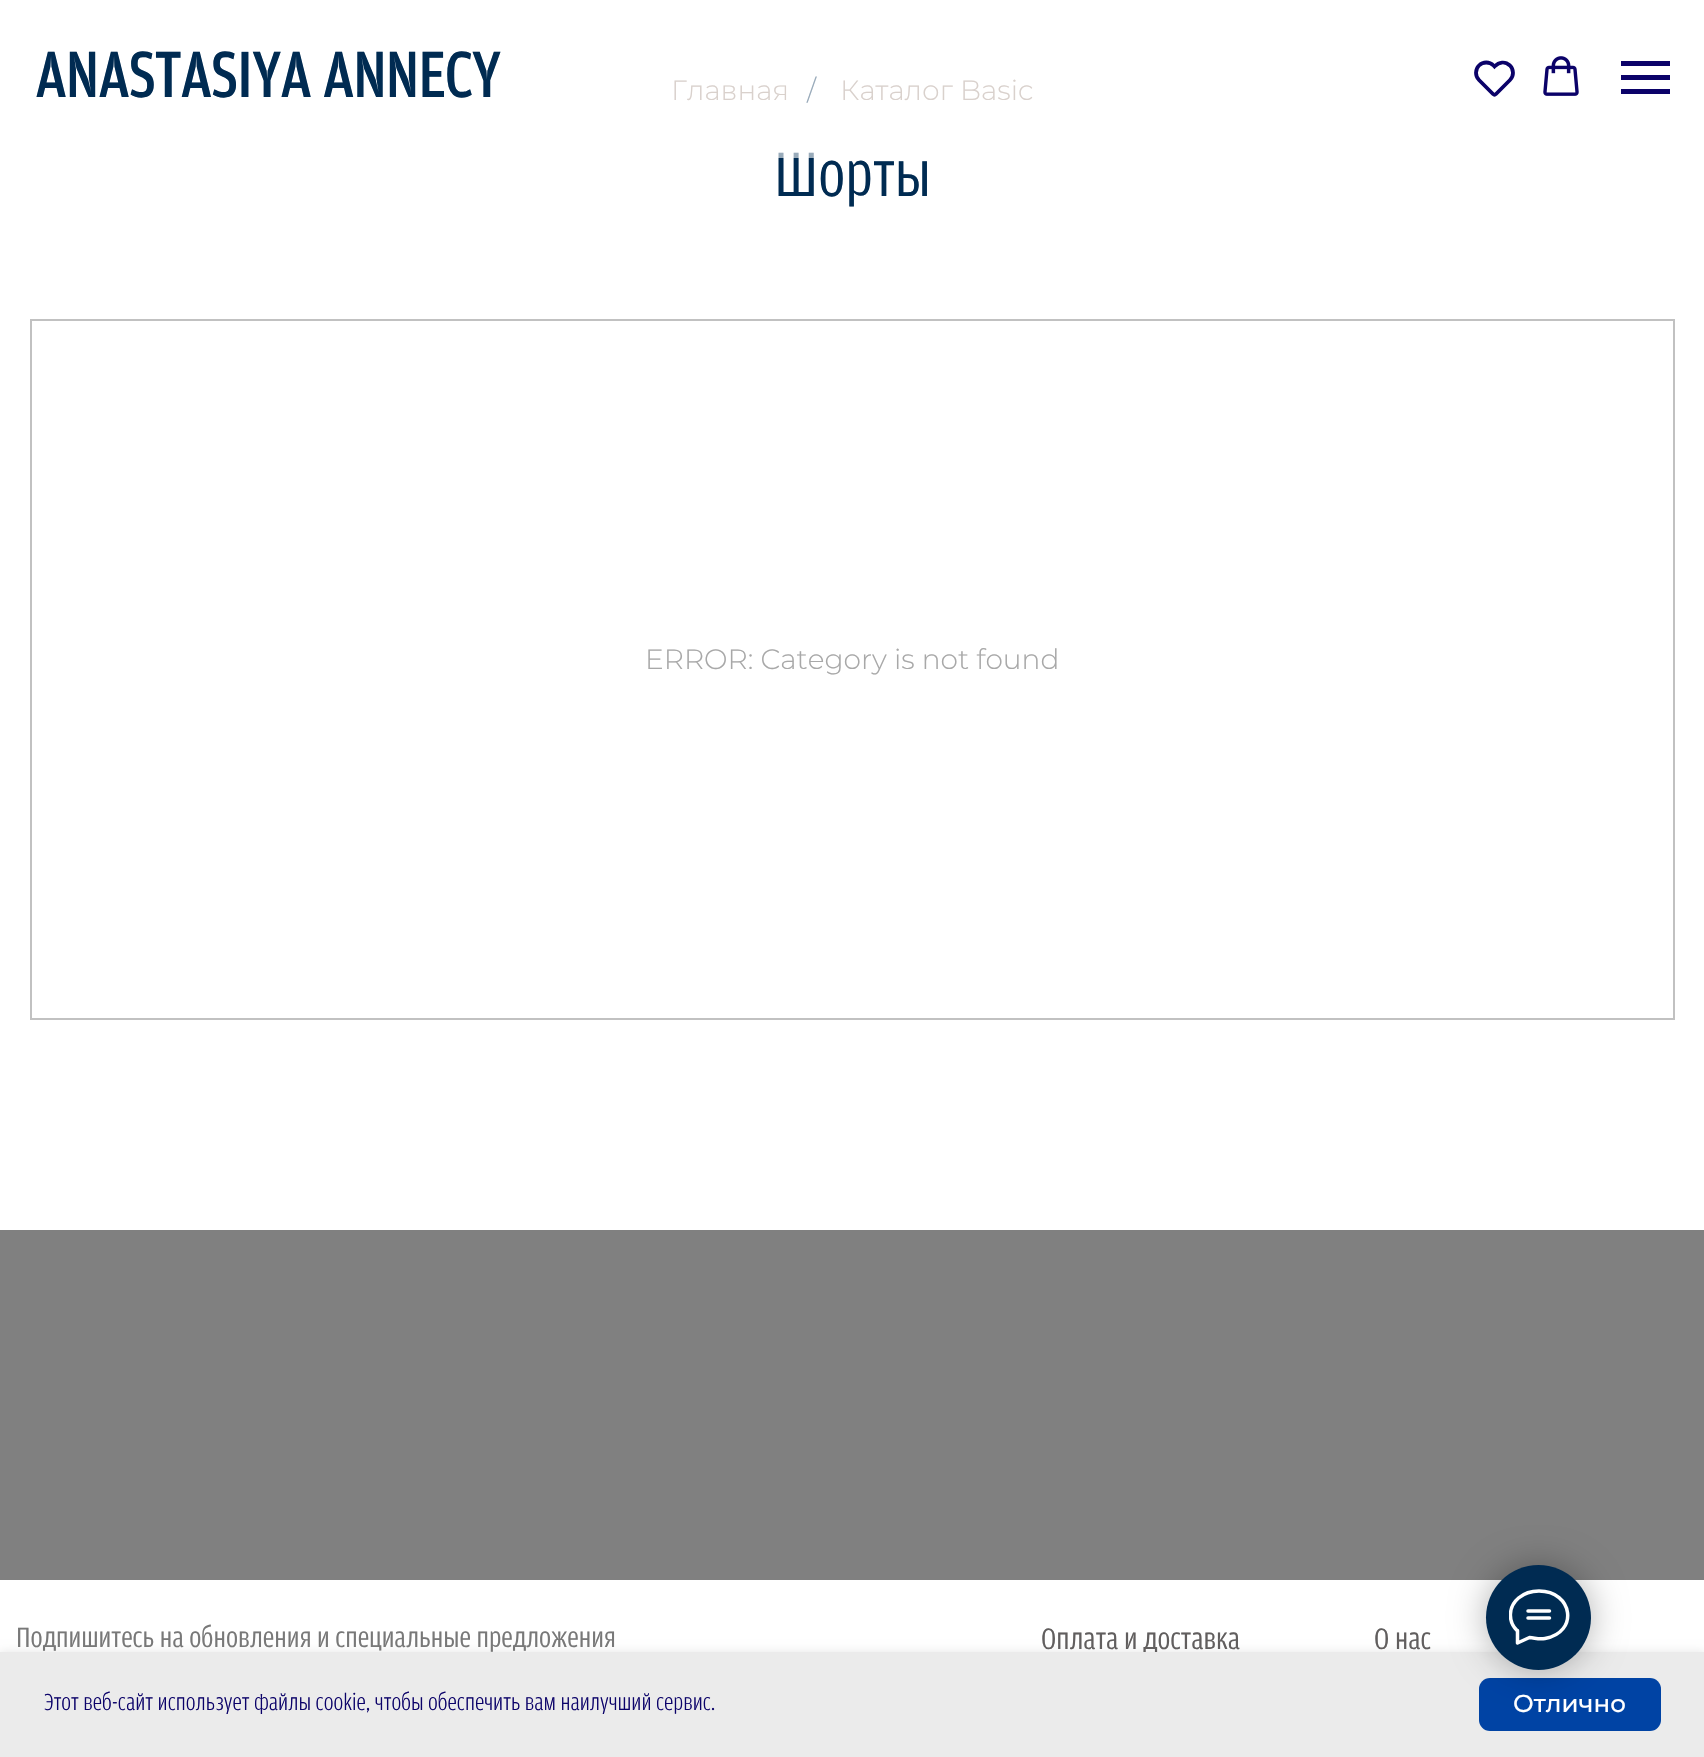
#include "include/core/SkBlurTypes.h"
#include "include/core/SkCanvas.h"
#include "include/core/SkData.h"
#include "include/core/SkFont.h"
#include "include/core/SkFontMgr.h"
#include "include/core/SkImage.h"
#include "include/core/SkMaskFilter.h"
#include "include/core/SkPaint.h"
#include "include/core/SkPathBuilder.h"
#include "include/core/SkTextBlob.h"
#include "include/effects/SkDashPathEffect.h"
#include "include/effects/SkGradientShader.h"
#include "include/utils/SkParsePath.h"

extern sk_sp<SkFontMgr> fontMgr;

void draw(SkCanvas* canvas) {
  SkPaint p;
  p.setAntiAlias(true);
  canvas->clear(SK_ColorWHITE);
  p.setStyle(SkPaint::kStroke_Style);
  p.setStrokeWidth(3.8f);
  p.setStrokeCap(SkPaint::kRound_Cap);
  p.setColor(SkColorSetRGB(11, 2, 105));
  canvas->drawPath(SkPathBuilder().moveTo(1510, 65.5f).cubicTo(1514, 69.5f, 1514, 76, 1510, 80).lineTo(1496, 94).cubicTo(1495, 95, 1494, 95, 1493, 94).lineTo(1479, 80).cubicTo(1475, 76, 1475, 69.5f, 1479, 65.5f).cubicTo(1483, 61.5f, 1489.5f, 61.5f, 1493.5f, 65.5f).lineTo(1494.5f, 66.5f).cubicTo(1499, 62, 1505, 61, 1510, 65.5f).close().detach(), p);
  canvas->drawImageRect(SkImages::DeferredFromEncodedData(SkData::MakeFromFileName("images/1.png")), SkRect::MakeLTRB(1543, 56, 1579, 96), SkSamplingOptions());
  p.setStyle(SkPaint::kFill_Style);
  canvas->drawRect(SkRect::MakeLTRB(1621, 61, 1670, 66), p);
  canvas->drawRect(SkRect::MakeLTRB(1621, 75, 1670, 80), p);
  canvas->drawRect(SkRect::MakeLTRB(1621, 89, 1670, 94), p);
  p.setColor(SkColorSetARGB(26, 0, 0, 0));
  p.setMaskFilter(SkMaskFilter::MakeBlur(kNormal_SkBlurStyle, 4.5f));
  canvas->drawRect(SkRect::MakeLTRB(0, 1652, 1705, 1757), p);
  p.setMaskFilter(nullptr);
  p.setStyle(SkPaint::kStroke_Style);
  p.setStrokeWidth(2);
  p.setStrokeCap(SkPaint::kButt_Cap);
  p.setColor(SkColorSetRGB(193, 193, 193));
  canvas->drawRect(SkRect::MakeLTRB(31, 320, 1674, 1019), p);
  p.setStyle(SkPaint::kFill_Style);
  p.setColor(SkColorSetRGB(128, 128, 128));
  canvas->drawRect(SkRect::MakeLTRB(0, 1230, 1704, 1580), p);
  SkFont font1(fontMgr->matchFamilyStyle("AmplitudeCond", SkFontStyle::Bold()), 66.5f);
  font1.setSubpixel(true);
  p.setColor(SkColorSetRGB(0, 43, 82));
  canvas->drawString("ANASTASIYA ANNECY", 35, 97, font1, p);
  SkFont font2(fontMgr->matchFamilyStyle("Montserrat", SkFontStyle(300, SkFontStyle::kNormal_Width, SkFontStyle::kUpright_Slant)), 28);
  font2.setSubpixel(true);
  p.setColor(SkColorSetRGB(159, 139, 128));
  canvas->drawString("Главная", 671, 100, font2, p);
  p.setColor(SkColorSetRGB(0, 43, 82));
  canvas->drawString("/", 807, 100, font2, p);
  p.setColor(SkColorSetRGB(159, 139, 128));
  canvas->drawString("Каталог Basic", 840, 100, font2, p);
  SkFont font3(fontMgr->matchFamilyStyle("AmplitudeCond", SkFontStyle::Normal()), 66.5f);
  font3.setSubpixel(true);
  p.setColor(SkColorSetRGB(0, 43, 82));
  canvas->drawString("Шорты", 774, 196, font3, p);
  p.setColor(SkColorSetARGB(153, 255, 255, 255));
  canvas->drawRect(SkRect::MakeLTRB(674, 76, 1033, 158), p);
  p.setColor(SkColorSetRGB(168, 168, 168));
  canvas->drawString("ERROR: Category is not found", 645, 669, font2, p);
  SkFont font4(fontMgr->matchFamilyStyle("AmplitudeCond", SkFontStyle::Normal()), 29.75f);
  font4.setSubpixel(true);
  p.setColor(SkColorSetRGB(120, 120, 120));
  canvas->drawString("Подпишитесь на обновления и специальные предложения", 16, 1647, font4, p);
  SkFont font5(fontMgr->matchFamilyStyle("AmplitudeCond", SkFontStyle::Normal()), 31.5f);
  font5.setSubpixel(true);
  p.setColor(SkColorSetRGB(97, 94, 94));
  canvas->drawString("Оплата и доставка", 1041, 1649, font5, p);
  p.setColor(SkColorSetRGB(235, 235, 235));
  canvas->drawRect(SkRect::MakeLTRB(0, 1652, 1704, 1757), p);
  p.setColor(SkColorSetRGB(0, 67, 164));
  canvas->drawRoundRect(SkRect::MakeLTRB(1479, 1678, 1661, 1731), 11, 11, p);
  p.setColor(SkColorSetARGB(77, 0, 0, 0));
  p.setMaskFilter(SkMaskFilter::MakeBlur(kNormal_SkBlurStyle, 17.5f));
  canvas->drawRoundRect(SkRect::MakeLTRB(1486, 1565, 1591, 1670), 52.5f, 52.5f, p);
  p.setMaskFilter(nullptr);
  p.setColor(SkColorSetRGB(0, 43, 82));
  canvas->drawCircle(1538.5f, 1617.5f, 52.5f, p);
  canvas->save();
  canvas->clipRect(SkRect::MakeLTRB(1509, 1589, 1570, 1645));
  p.setStyle(SkPaint::kStroke_Style);
  p.setStrokeWidth(3.5f);
  p.setStrokeCap(SkPaint::kRound_Cap);
  p.setStrokeJoin(SkPaint::kRound_Join);
  p.setColor(SK_ColorWHITE);
  canvas->drawPath(SkPathBuilder().moveTo(1528, 1611).lineTo(1549.5f, 1611).moveTo(1528, 1618).lineTo(1549.5f, 1618).moveTo(1517, 1630.5f).cubicTo(1507.5f, 1621, 1508.5f, 1606.5f, 1518.5f, 1598).cubicTo(1524.5f, 1593, 1532, 1591, 1539, 1591).cubicTo(1573, 1591, 1579, 1632.5f, 1545, 1638.5f).cubicTo(1538.5f, 1639.5f, 1535.5f, 1638, 1529.5f, 1637.5f).lineTo(1517.5f, 1643).lineTo(1517.5f, 1630.5f).close().detach(), p);
  canvas->restore();
  SkFont font6(fontMgr->matchFamilyStyle("Montserrat", SkFontStyle(500, SkFontStyle::kNormal_Width, SkFontStyle::kUpright_Slant)), 24.5f);
  font6.setSubpixel(true);
  p.setStyle(SkPaint::kFill_Style);
  canvas->drawString("Отлично", 1513, 1712, font6, p);
  SkFont font7(fontMgr->matchFamilyStyle("AmplitudeCond", SkFontStyle(300, SkFontStyle::kNormal_Width, SkFontStyle::kUpright_Slant)), 24.5f);
  font7.setSubpixel(true);
  p.setColor(SkColorSetRGB(11, 2, 105));
  canvas->drawString("Этот веб-сайт использует файлы cookie, чтобы обеспечить вам наилучший сервис.", 44, 1710, font7, p);
  p.setColor(SkColorSetRGB(97, 94, 94));
  canvas->drawString("О нас", 1374, 1649, font5, p);
}
